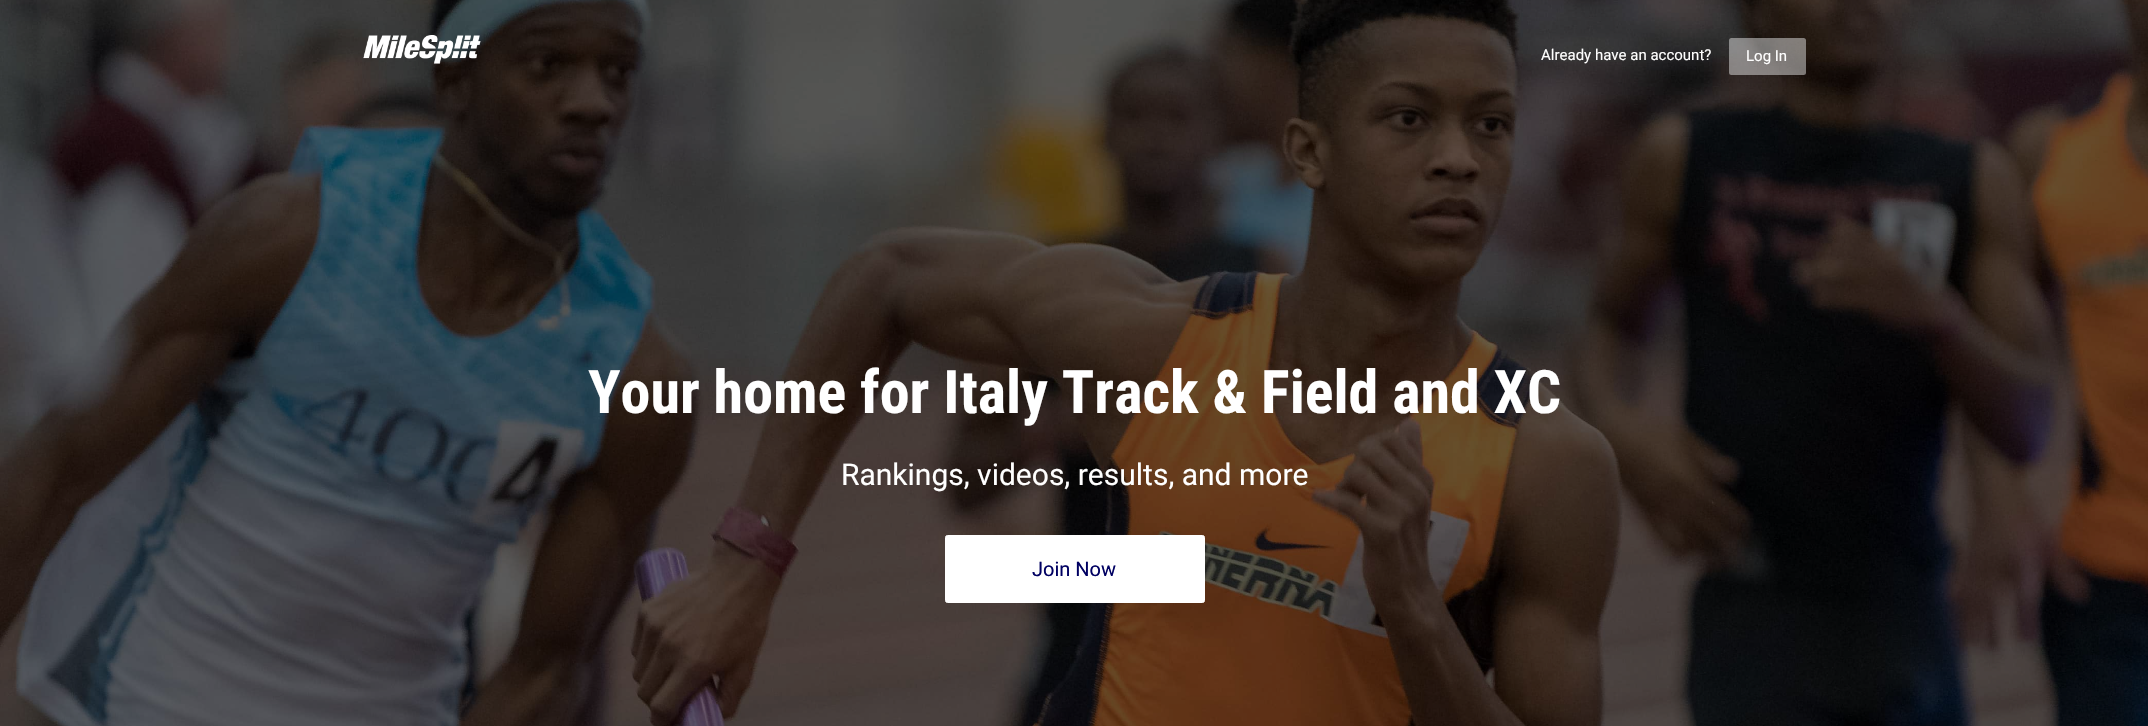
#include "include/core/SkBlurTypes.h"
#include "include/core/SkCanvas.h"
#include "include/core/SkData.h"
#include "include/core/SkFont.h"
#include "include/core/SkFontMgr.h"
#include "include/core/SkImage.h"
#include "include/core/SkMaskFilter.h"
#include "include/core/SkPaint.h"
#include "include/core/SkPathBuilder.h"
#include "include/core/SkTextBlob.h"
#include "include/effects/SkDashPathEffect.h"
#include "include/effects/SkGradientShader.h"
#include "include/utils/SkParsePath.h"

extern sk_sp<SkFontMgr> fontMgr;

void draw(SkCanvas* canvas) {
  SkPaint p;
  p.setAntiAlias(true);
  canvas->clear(SK_ColorWHITE);
  canvas->drawImageRect(SkImages::DeferredFromEncodedData(SkData::MakeFromFileName("images/1.png")), SkRect::MakeLTRB(0, 0, 2148, 726), SkSamplingOptions());
  canvas->drawImageRect(SkImages::DeferredFromEncodedData(SkData::MakeFromFileName("images/2.png")), SkRect::MakeLTRB(363, 35, 481, 64), SkSamplingOptions());
  p.setColor(SkColorSetARGB(128, 226, 226, 226));
  canvas->drawRoundRect(SkRect::MakeLTRB(1729, 38, 1806, 75), 2.5f, 2.5f, p);
  p.setColor(SK_ColorWHITE);
  canvas->drawRoundRect(SkRect::MakeLTRB(945.5f, 535.5f, 1204.5f, 602.5f), 2, 2, p);
  p.setStyle(SkPaint::kStroke_Style);
  p.setStrokeWidth(1);
  canvas->drawRoundRect(SkRect::MakeLTRB(945.5f, 535.5f, 1204.5f, 602.5f), 2, 2, p);
  SkFont font1(fontMgr->matchFamilyStyle("Roboto", SkFontStyle::Normal()), 15);
  font1.setSubpixel(true);
  p.setStyle(SkPaint::kFill_Style);
  canvas->drawString("Already have an account?", 1541, 60, font1, p);
  canvas->drawString("Log In", 1746, 61, font1, p);
  SkFont font2(fontMgr->matchFamilyStyle("Roboto Condensed", SkFontStyle::Bold()), 60);
  font2.setSubpixel(true);
  canvas->drawString("Your home for Italy Track & Field and XC", 588, 413, font2, p);
  SkFont font3(fontMgr->matchFamilyStyle("Roboto", SkFontStyle::Normal()), 30);
  font3.setSubpixel(true);
  canvas->drawString("Rankings, videos, results, and more", 841, 485, font3, p);
  SkFont font4(fontMgr->matchFamilyStyle("Roboto", SkFontStyle::Normal()), 20);
  font4.setSubpixel(true);
  p.setColor(SkColorSetRGB(0, 0, 98));
  canvas->drawString("Join Now", 1032, 576, font4, p);
}
